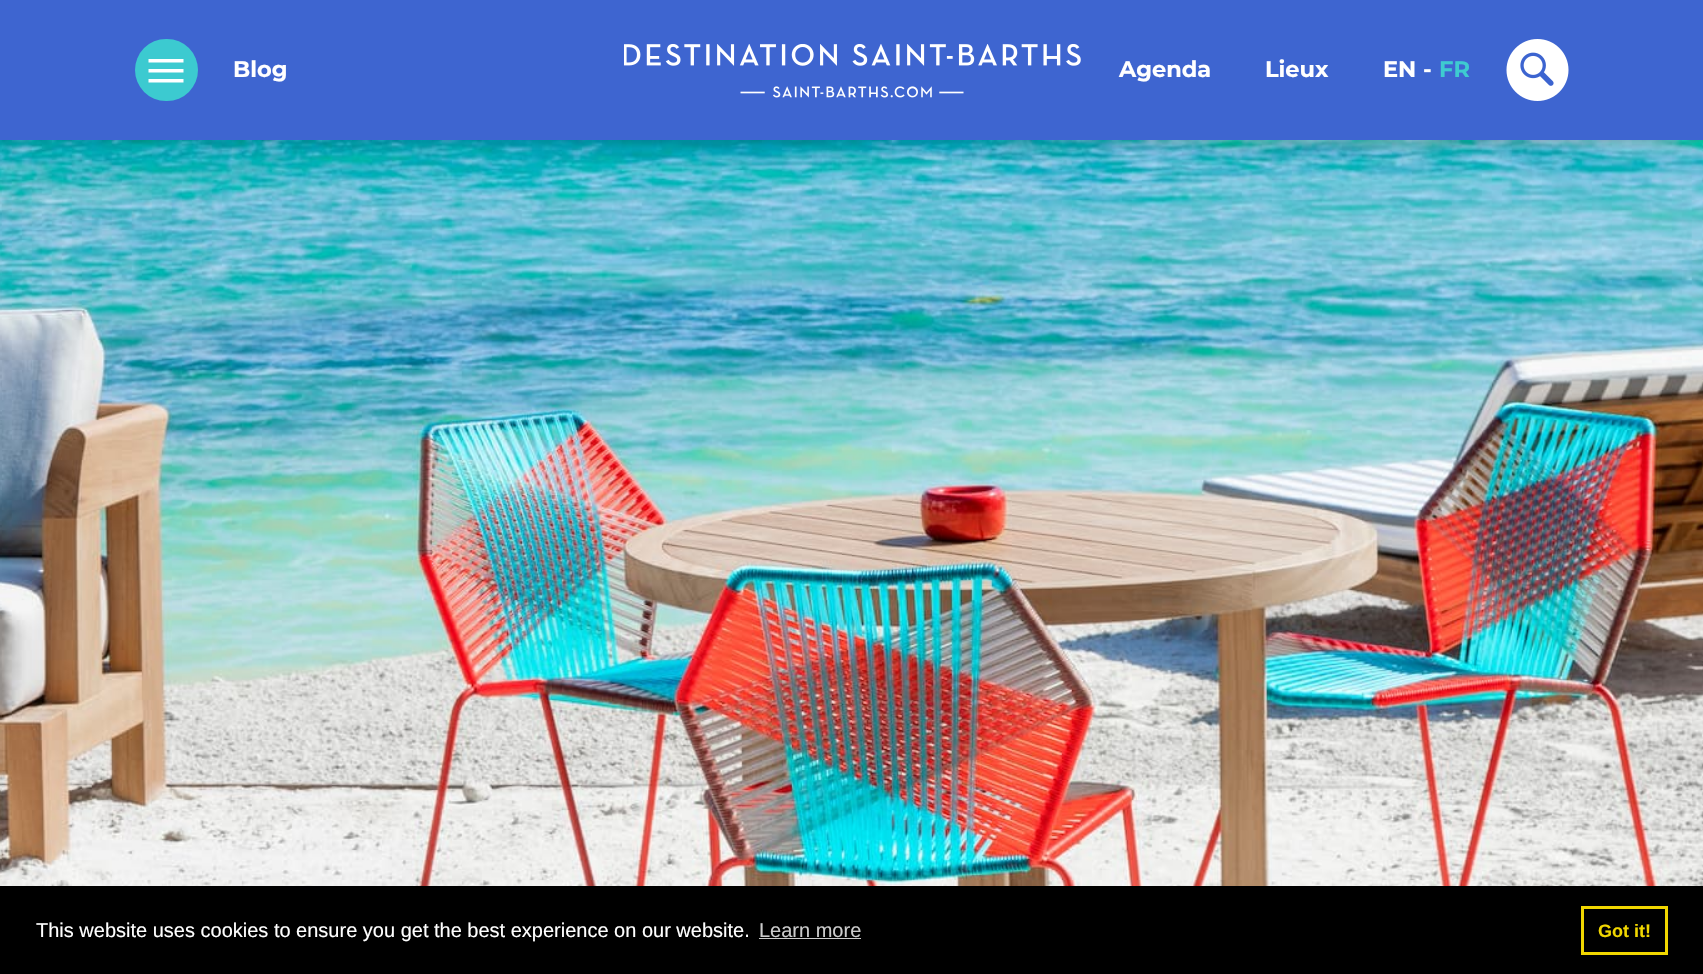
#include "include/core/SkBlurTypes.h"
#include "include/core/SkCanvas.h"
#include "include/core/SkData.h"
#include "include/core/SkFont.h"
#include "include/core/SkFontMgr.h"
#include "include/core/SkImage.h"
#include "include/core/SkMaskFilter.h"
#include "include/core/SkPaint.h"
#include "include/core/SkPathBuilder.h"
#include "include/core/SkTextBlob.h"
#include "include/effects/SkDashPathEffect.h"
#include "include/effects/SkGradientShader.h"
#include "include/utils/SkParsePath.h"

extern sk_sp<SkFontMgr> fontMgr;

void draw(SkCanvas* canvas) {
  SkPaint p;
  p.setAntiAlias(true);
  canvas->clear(SK_ColorWHITE);
  canvas->drawImageRect(SkImages::DeferredFromEncodedData(SkData::MakeFromFileName("images/3.png")), SkRect::MakeLTRB(0, 140, 1703, 886), SkSamplingOptions());
  p.setColor(SkColorSetARGB(41, 0, 0, 0));
  p.setMaskFilter(SkMaskFilter::MakeBlur(kNormal_SkBlurStyle, 4));
  canvas->drawRect(SkRect::MakeLTRB(0, 4, 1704, 144), p);
  p.setMaskFilter(nullptr);
  p.setColor(SkColorSetRGB(62, 101, 208));
  canvas->drawRect(SkRect::MakeLTRB(0, 0, 1703, 140), p);
  canvas->drawImageRect(SkImages::DeferredFromEncodedData(SkData::MakeFromFileName("images/1.png")), SkRect::MakeLTRB(624, 44, 1081, 98), SkSamplingOptions());
  p.setColor(SkColorSetRGB(60, 202, 208));
  canvas->drawRoundRect(SkRect::MakeLTRB(135, 39, 198, 101), 31, 31, p);
  p.setColor(SK_ColorWHITE);
  canvas->drawPath(SkPathBuilder().moveTo(148.5f, 79).lineTo(183.5f, 79).lineTo(183.5f, 82.5f).lineTo(148.5f, 82.5f).close().moveTo(148.5f, 69).lineTo(183.5f, 69).lineTo(183.5f, 72.5f).lineTo(148.5f, 72.5f).close().moveTo(148.5f, 59).lineTo(183.5f, 59).lineTo(183.5f, 62.5f).lineTo(148.5f, 62.5f).close().detach(), p);
  canvas->drawImageRect(SkImages::DeferredFromEncodedData(SkData::MakeFromFileName("images/2.png")), SkRect::MakeLTRB(1506, 39, 1569, 101), SkSamplingOptions());
  p.setColor(SK_ColorBLACK);
  canvas->drawRect(SkRect::MakeLTRB(0, 886, 1703, 974), p);
  p.setColor(SkColorSetRGB(204, 204, 204));
  canvas->drawRect(SkRect::MakeLTRB(759, 938, 861, 939), p);
  p.setStyle(SkPaint::kStroke_Style);
  p.setStrokeWidth(3);
  p.setColor(SkColorSetRGB(241, 214, 0));
  canvas->drawRect(SkRect::MakeLTRB(1582.5f, 907.5f, 1666.5f, 953.5f), p);
  SkFont font1(fontMgr->matchFamilyStyle("Montserrat", SkFontStyle::Bold()), 22.5f);
  font1.setSubpixel(true);
  p.setStyle(SkPaint::kFill_Style);
  p.setColor(SK_ColorWHITE);
  canvas->drawString("Blog", 233, 77, font1, p);
  canvas->drawString("Agenda", 1119, 77, font1, p);
  canvas->drawString("Lieux", 1265, 77, font1, p);
  canvas->drawString("EN", 1383, 77, font1, p);
  canvas->drawString("-", 1423, 77, font1, p);
  p.setColor(SkColorSetRGB(62, 203, 208));
  canvas->drawString("FR", 1439, 77, font1, p);
  SkFont font2(fontMgr->matchFamilyStyle("Liberation Sans", SkFontStyle::Normal()), 20);
  font2.setSubpixel(true);
  p.setColor(SK_ColorWHITE);
  canvas->drawString("This website uses cookies to ensure you get the best experience on our website.", 36, 937, font2, p);
  p.setColor(SkColorSetRGB(204, 204, 204));
  canvas->drawString("Learn more", 759, 937, font2, p);
  SkFont font3(fontMgr->matchFamilyStyle("Liberation Sans", SkFontStyle::Bold()), 18);
  font3.setSubpixel(true);
  p.setColor(SkColorSetRGB(241, 214, 0));
  canvas->drawString("Got it!", 1598, 937, font3, p);
}
